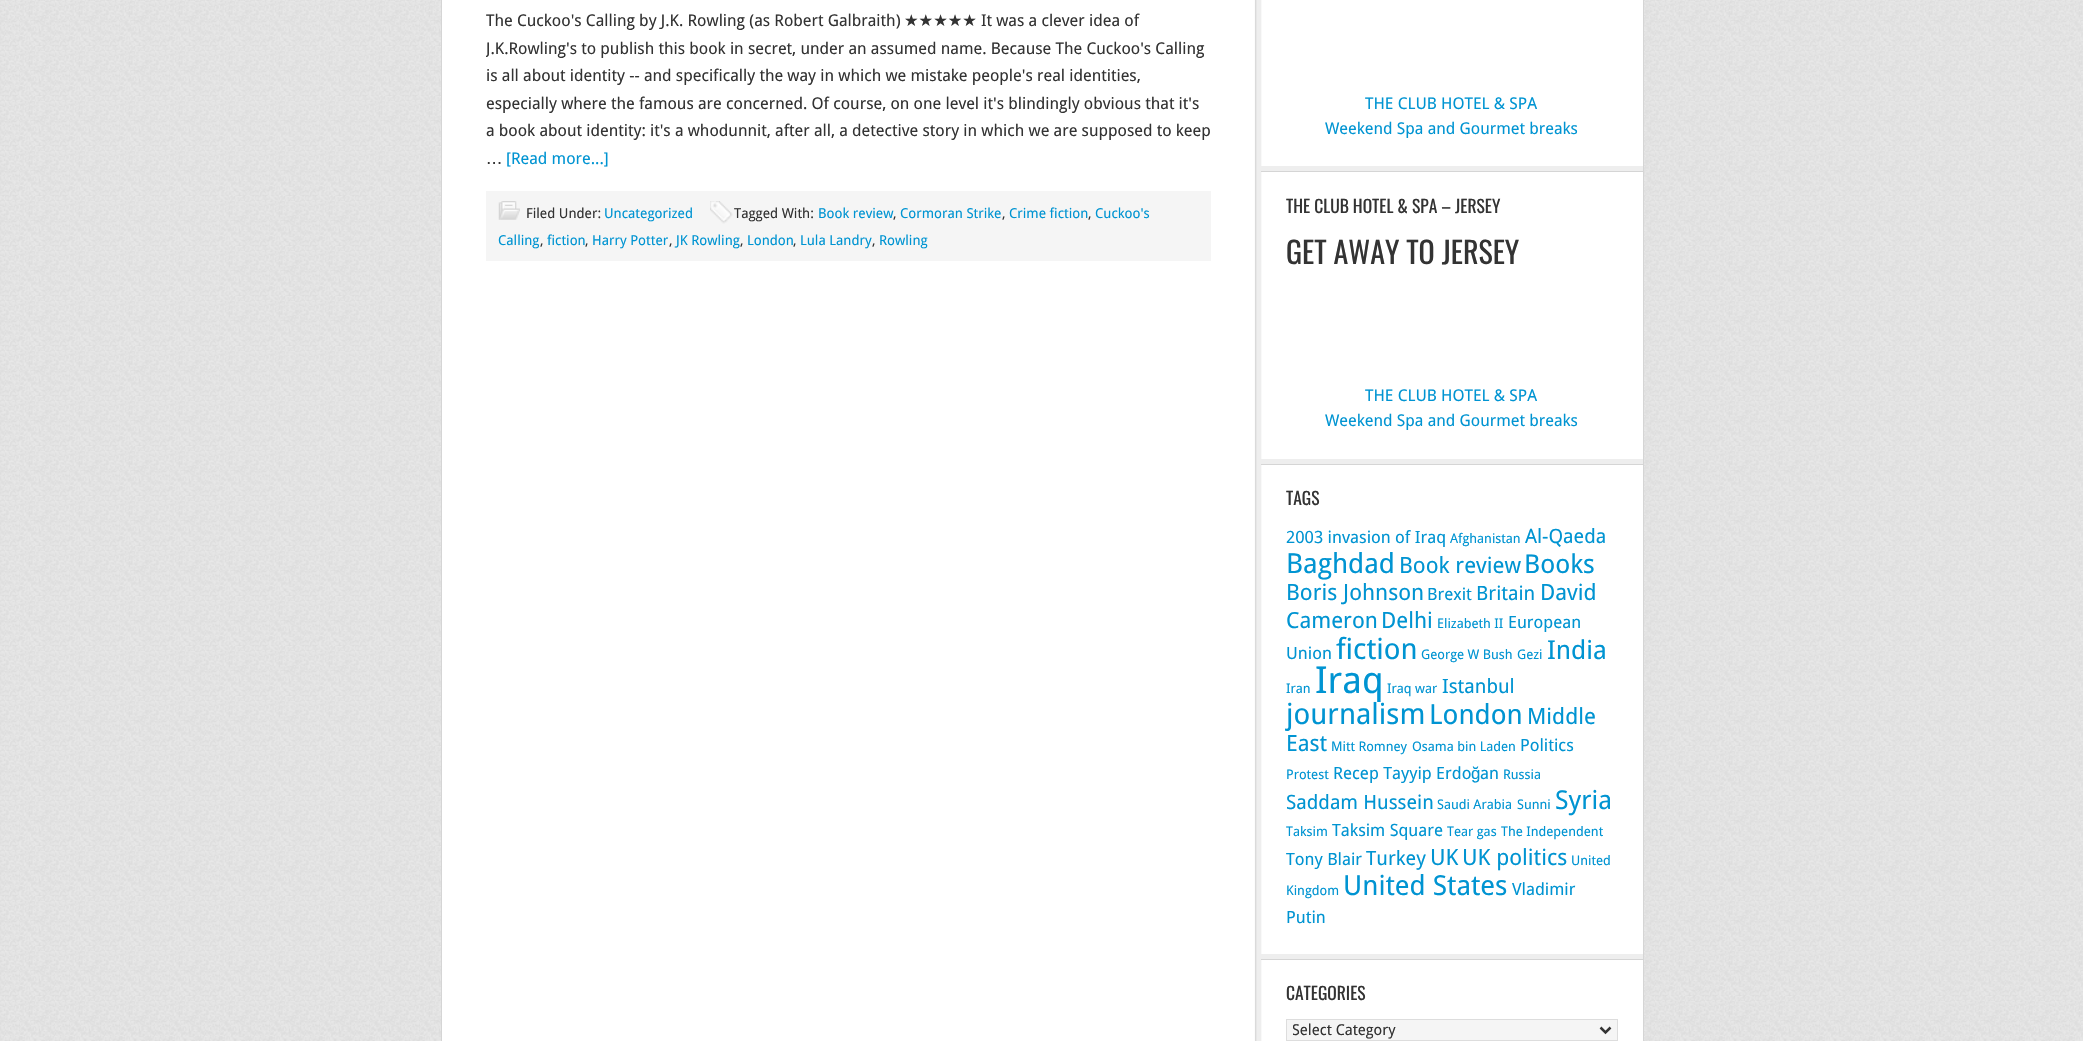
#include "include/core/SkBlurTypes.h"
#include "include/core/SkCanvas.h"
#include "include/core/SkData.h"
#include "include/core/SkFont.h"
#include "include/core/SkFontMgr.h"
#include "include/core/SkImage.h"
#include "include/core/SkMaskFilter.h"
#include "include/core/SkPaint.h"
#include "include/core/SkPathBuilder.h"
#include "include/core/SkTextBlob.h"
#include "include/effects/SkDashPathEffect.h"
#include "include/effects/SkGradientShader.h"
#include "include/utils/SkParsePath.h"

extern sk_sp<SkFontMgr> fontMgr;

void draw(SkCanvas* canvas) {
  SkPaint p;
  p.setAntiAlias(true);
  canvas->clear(SK_ColorWHITE);
  canvas->drawImageRect(SkImages::DeferredFromEncodedData(SkData::MakeFromFileName("images/1.png")), SkRect::MakeLTRB(0, 0, 2083, 1041), SkSamplingOptions());
  canvas->drawImageRect(SkImages::DeferredFromEncodedData(SkData::MakeFromFileName("images/2.png")), SkRect::MakeLTRB(442, 0, 1643, 1041), SkSamplingOptions());
  p.setColor(SkColorSetRGB(213, 213, 213));
  canvas->drawRect(SkRect::MakeLTRB(1643, 0, 1644, 1041), p);
  canvas->drawRect(SkRect::MakeLTRB(441, 0, 442, 1041), p);
  p.setColor(SkColorSetRGB(245, 245, 245));
  canvas->drawRect(SkRect::MakeLTRB(486, 191, 1211, 261), p);
  canvas->drawImageRect(SkImages::DeferredFromEncodedData(SkData::MakeFromFileName("images/3.png")), SkRect::MakeLTRB(498, 201, 520, 220), SkSamplingOptions());
  canvas->drawImageRect(SkImages::DeferredFromEncodedData(SkData::MakeFromFileName("images/4.png")), SkRect::MakeLTRB(710, 201, 733, 224), SkSamplingOptions());
  p.setColor(SkColorSetRGB(213, 213, 213));
  canvas->drawRect(SkRect::MakeLTRB(1261, 171, 1643, 172), p);
  p.setColor(SkColorSetRGB(238, 238, 238));
  canvas->drawRect(SkRect::MakeLTRB(1261, 166, 1643, 171), p);
  p.setColor(SkColorSetRGB(213, 213, 213));
  canvas->drawRect(SkRect::MakeLTRB(1261, 464, 1643, 465), p);
  p.setColor(SkColorSetRGB(238, 238, 238));
  canvas->drawRect(SkRect::MakeLTRB(1261, 459, 1643, 464), p);
  p.setColor(SkColorSetRGB(213, 213, 213));
  canvas->drawRect(SkRect::MakeLTRB(1261, 959, 1643, 960), p);
  p.setColor(SkColorSetRGB(238, 238, 238));
  canvas->drawRect(SkRect::MakeLTRB(1261, 954, 1643, 959), p);
  p.setColor(SkColorSetRGB(245, 245, 245));
  canvas->drawRect(SkRect::MakeLTRB(1286.5f, 1019.5f, 1617.5f, 1040.5f), p);
  p.setStyle(SkPaint::kStroke_Style);
  p.setStrokeWidth(1);
  p.setColor(SkColorSetRGB(221, 221, 221));
  canvas->drawRect(SkRect::MakeLTRB(1286.5f, 1019.5f, 1617.5f, 1040.5f), p);
  p.setStrokeWidth(2.5f);
  p.setColor(SkColorSetRGB(51, 51, 51));
  canvas->drawPath(SkPathBuilder().moveTo(1600.5f, 1027.5f).lineTo(1605.5f, 1032.5f).lineTo(1610.5f, 1027.5f).detach(), p);
  SkFont font1(fontMgr->matchFamilyStyle("Droid Sans", SkFontStyle::Normal()), 16.25f);
  font1.setSubpixel(true);
  p.setStyle(SkPaint::kFill_Style);
  canvas->drawString("The Cuckoo's Calling by J.K. Rowling (as Robert Galbraith)", 486, 26, font1, p);
  SkFont font2(fontMgr->matchFamilyStyle("DejaVu Sans", SkFontStyle::Normal()), 16.25f);
  font2.setSubpixel(true);
  canvas->drawString("★★★★★", 904, 26, font2, p);
  canvas->drawString("It was a clever idea of", 981, 26, font1, p);
  canvas->save();
  canvas->clipRect(SkRect::MakeLTRB(486, 8, 1211, 191));
  canvas->drawString("J.K.Rowling's to publish this book in secret, under an assumed name. Because The Cuckoo's Calling", 486, 54, font1, p);
  canvas->restore();
  canvas->drawString("is all about identity -- and specifically the way in which we mistake people's real identities,", 486, 81, font1, p);
  canvas->drawString("especially where the famous are concerned. Of course, on one level it's blindingly obvious that it's", 486, 109, font1, p);
  canvas->drawString("a book about identity: it's a whodunnit, after all, a detective story in which we are supposed to keep", 486, 136, font1, p);
  canvas->drawString("…", 486, 164, font2, p);
  p.setColor(SkColorSetRGB(0, 148, 210));
  canvas->drawString("[Read more...]", 506, 164, font1, p);
  SkFont font3(fontMgr->matchFamilyStyle("Droid Sans", SkFontStyle::Normal()), 13.75f);
  font3.setSubpixel(true);
  p.setColor(SkColorSetRGB(51, 51, 51));
  canvas->drawString("Filed Under:", 526, 218, font3, p);
  p.setColor(SkColorSetRGB(0, 148, 210));
  canvas->drawString("Uncategorized", 604, 218, font3, p);
  p.setColor(SkColorSetRGB(51, 51, 51));
  canvas->drawString("Tagged With:", 734, 218, font3, p);
  p.setColor(SkColorSetRGB(0, 148, 210));
  canvas->drawString("Book review", 818, 218, font3, p);
  p.setColor(SkColorSetRGB(51, 51, 51));
  canvas->drawString(",", 893, 218, font3, p);
  p.setColor(SkColorSetRGB(0, 148, 210));
  canvas->drawString("Cormoran Strike", 900, 218, font3, p);
  p.setColor(SkColorSetRGB(51, 51, 51));
  canvas->drawString(",", 1002, 218, font3, p);
  p.setColor(SkColorSetRGB(0, 148, 210));
  canvas->drawString("Crime fiction", 1009, 218, font3, p);
  p.setColor(SkColorSetRGB(51, 51, 51));
  canvas->drawString(",", 1088, 218, font3, p);
  p.setColor(SkColorSetRGB(0, 148, 210));
  canvas->drawString("Cuckoo's", 1095, 218, font3, p);
  canvas->drawString("Calling", 498, 245, font3, p);
  p.setColor(SkColorSetRGB(51, 51, 51));
  canvas->drawString(",", 540, 245, font3, p);
  p.setColor(SkColorSetRGB(0, 148, 210));
  canvas->drawString("fiction", 547, 245, font3, p);
  p.setColor(SkColorSetRGB(51, 51, 51));
  canvas->drawString(",", 585, 245, font3, p);
  p.setColor(SkColorSetRGB(0, 148, 210));
  canvas->drawString("Harry Potter", 592, 245, font3, p);
  p.setColor(SkColorSetRGB(51, 51, 51));
  canvas->drawString(",", 669, 245, font3, p);
  p.setColor(SkColorSetRGB(0, 148, 210));
  canvas->drawString("JK Rowling", 676, 245, font3, p);
  p.setColor(SkColorSetRGB(51, 51, 51));
  canvas->drawString(",", 740, 245, font3, p);
  p.setColor(SkColorSetRGB(0, 148, 210));
  canvas->drawString("London", 747, 245, font3, p);
  p.setColor(SkColorSetRGB(51, 51, 51));
  canvas->drawString(",", 793, 245, font3, p);
  p.setColor(SkColorSetRGB(0, 148, 210));
  canvas->drawString("Lula Landry", 800, 245, font3, p);
  p.setColor(SkColorSetRGB(51, 51, 51));
  canvas->drawString(",", 872, 245, font3, p);
  p.setColor(SkColorSetRGB(0, 148, 210));
  canvas->drawString("Rowling", 879, 245, font3, p);
  canvas->drawString("THE CLUB HOTEL & SPA", 1365, 109, font1, p);
  canvas->drawString("Weekend Spa and Gourmet breaks", 1325, 134, font1, p);
  SkFont font4(fontMgr->matchFamilyStyle("Oswald", SkFontStyle::Normal()), 17.5f);
  font4.setSubpixel(true);
  p.setColor(SkColorSetRGB(51, 51, 51));
  canvas->drawString("THE CLUB HOTEL & SPA – JERSEY", 1286, 213, font4, p);
  SkFont font5(fontMgr->matchFamilyStyle("Oswald", SkFontStyle::Normal()), 30);
  font5.setSubpixel(true);
  canvas->drawString("GET AWAY TO JERSEY", 1286, 264, font5, p);
  p.setColor(SkColorSetRGB(0, 148, 210));
  canvas->drawString("THE CLUB HOTEL & SPA", 1365, 401, font1, p);
  canvas->drawString("Weekend Spa and Gourmet breaks", 1325, 426, font1, p);
  p.setColor(SkColorSetRGB(51, 51, 51));
  canvas->drawString("TAGS", 1286, 505, font4, p);
  SkFont font6(fontMgr->matchFamilyStyle("Droid Sans", SkFontStyle::Normal()), 16.9f);
  font6.setSubpixel(true);
  p.setColor(SkColorSetRGB(0, 148, 210));
  canvas->drawString("2003 invasion of Iraq", 1286, 543, font6, p);
  SkFont font7(fontMgr->matchFamilyStyle("Droid Sans", SkFontStyle::Normal()), 13.25f);
  font7.setSubpixel(true);
  canvas->drawString("Afghanistan", 1450, 543, font7, p);
  SkFont font8(fontMgr->matchFamilyStyle("Droid Sans", SkFontStyle::Normal()), 19.75f);
  font8.setSubpixel(true);
  canvas->drawString("Al-Qaeda", 1525, 543, font8, p);
  SkFont font9(fontMgr->matchFamilyStyle("Droid Sans", SkFontStyle::Normal()), 27.5f);
  font9.setSubpixel(true);
  canvas->drawString("Baghdad", 1286, 573, font9, p);
  SkFont font10(fontMgr->matchFamilyStyle("Droid Sans", SkFontStyle::Normal()), 22.25f);
  font10.setSubpixel(true);
  canvas->drawString("Book review", 1399, 573, font10, p);
  SkFont font11(fontMgr->matchFamilyStyle("Droid Sans", SkFontStyle::Normal()), 26);
  font11.setSubpixel(true);
  canvas->drawString("Books", 1524, 573, font11, p);
  canvas->drawString("Boris Johnson", 1286, 600, font10, p);
  canvas->drawString("Brexit", 1427, 600, font6, p);
  canvas->drawString("Britain", 1476, 600, font8, p);
  canvas->drawString("David", 1540, 600, font10, p);
  canvas->drawString("Cameron", 1286, 628, font10, p);
  canvas->drawString("Delhi", 1381, 628, font10, p);
  canvas->drawString("Elizabeth II", 1437, 628, font7, p);
  canvas->drawString("European", 1508, 628, font6, p);
  canvas->drawString("Union", 1286, 659, font6, p);
  SkFont font12(fontMgr->matchFamilyStyle("Droid Sans", SkFontStyle::Normal()), 29);
  font12.setSubpixel(true);
  canvas->drawString("fiction", 1336, 659, font12, p);
  canvas->drawString("George W Bush", 1421, 659, font7, p);
  canvas->drawString("Gezi", 1517, 659, font7, p);
  canvas->drawString("India", 1547, 659, font11, p);
  canvas->drawString("Iran", 1286, 693, font7, p);
  SkFont font13(fontMgr->matchFamilyStyle("Droid Sans", SkFontStyle::Normal()), 37);
  font13.setSubpixel(true);
  canvas->drawString("Iraq", 1315, 693, font13, p);
  canvas->drawString("Iraq war", 1387, 693, font7, p);
  canvas->drawString("Istanbul", 1442, 693, font8, p);
  canvas->drawString("journalism", 1286, 724, font12, p);
  canvas->drawString("London", 1429, 724, font9, p);
  canvas->drawString("Middle", 1527, 724, font10, p);
  canvas->drawString("East", 1286, 751, font10, p);
  canvas->drawString("Mitt Romney", 1331, 751, font7, p);
  canvas->drawString("Osama bin Laden", 1412, 751, font7, p);
  canvas->drawString("Politics", 1520, 751, font6, p);
  canvas->drawString("Protest", 1286, 779, font7, p);
  canvas->drawString("Recep Tayyip Erdo", 1333, 779, font6, p);
  SkFont font14(fontMgr->matchFamilyStyle("Liberation Sans", SkFontStyle::Normal()), 16.9f);
  font14.setSubpixel(true);
  canvas->drawString("ğ", 1471, 779, font14, p);
  canvas->drawString("an", 1480, 779, font6, p);
  canvas->drawString("Russia", 1503, 779, font7, p);
  canvas->drawString("Saddam Hussein", 1286, 809, font8, p);
  canvas->drawString("Saudi Arabia", 1437, 809, font7, p);
  canvas->drawString("Sunni", 1517, 809, font7, p);
  canvas->drawString("Syria", 1555, 809, font11, p);
  canvas->drawString("Taksim", 1286, 836, font7, p);
  canvas->drawString("Taksim Square", 1332, 836, font6, p);
  canvas->drawString("Tear gas", 1447, 836, font7, p);
  canvas->drawString("The Independent", 1501, 836, font7, p);
  canvas->drawString("Tony Blair", 1286, 865, font6, p);
  canvas->drawString("Turkey", 1366, 865, font8, p);
  canvas->drawString("UK", 1430, 865, font10, p);
  canvas->drawString("UK politics", 1462, 865, font10, p);
  canvas->drawString("United", 1571, 865, font7, p);
  canvas->drawString("Kingdom", 1286, 895, font7, p);
  canvas->drawString("United States", 1343, 895, font9, p);
  canvas->drawString("Vladimir", 1512, 895, font6, p);
  canvas->drawString("Putin", 1286, 923, font6, p);
  p.setColor(SkColorSetRGB(51, 51, 51));
  canvas->drawString("CATEGORIES", 1286, 1000, font4, p);
  canvas->save();
  canvas->clipRect(SkRect::MakeLTRB(1293, 1020, 1596, 1040));
  SkFont font15(fontMgr->matchFamilyStyle("Droid Sans", SkFontStyle::Normal()), 15);
  font15.setSubpixel(true);
  canvas->drawString("Select Category", 1292, 1035, font15, p);
  canvas->restore();
}
